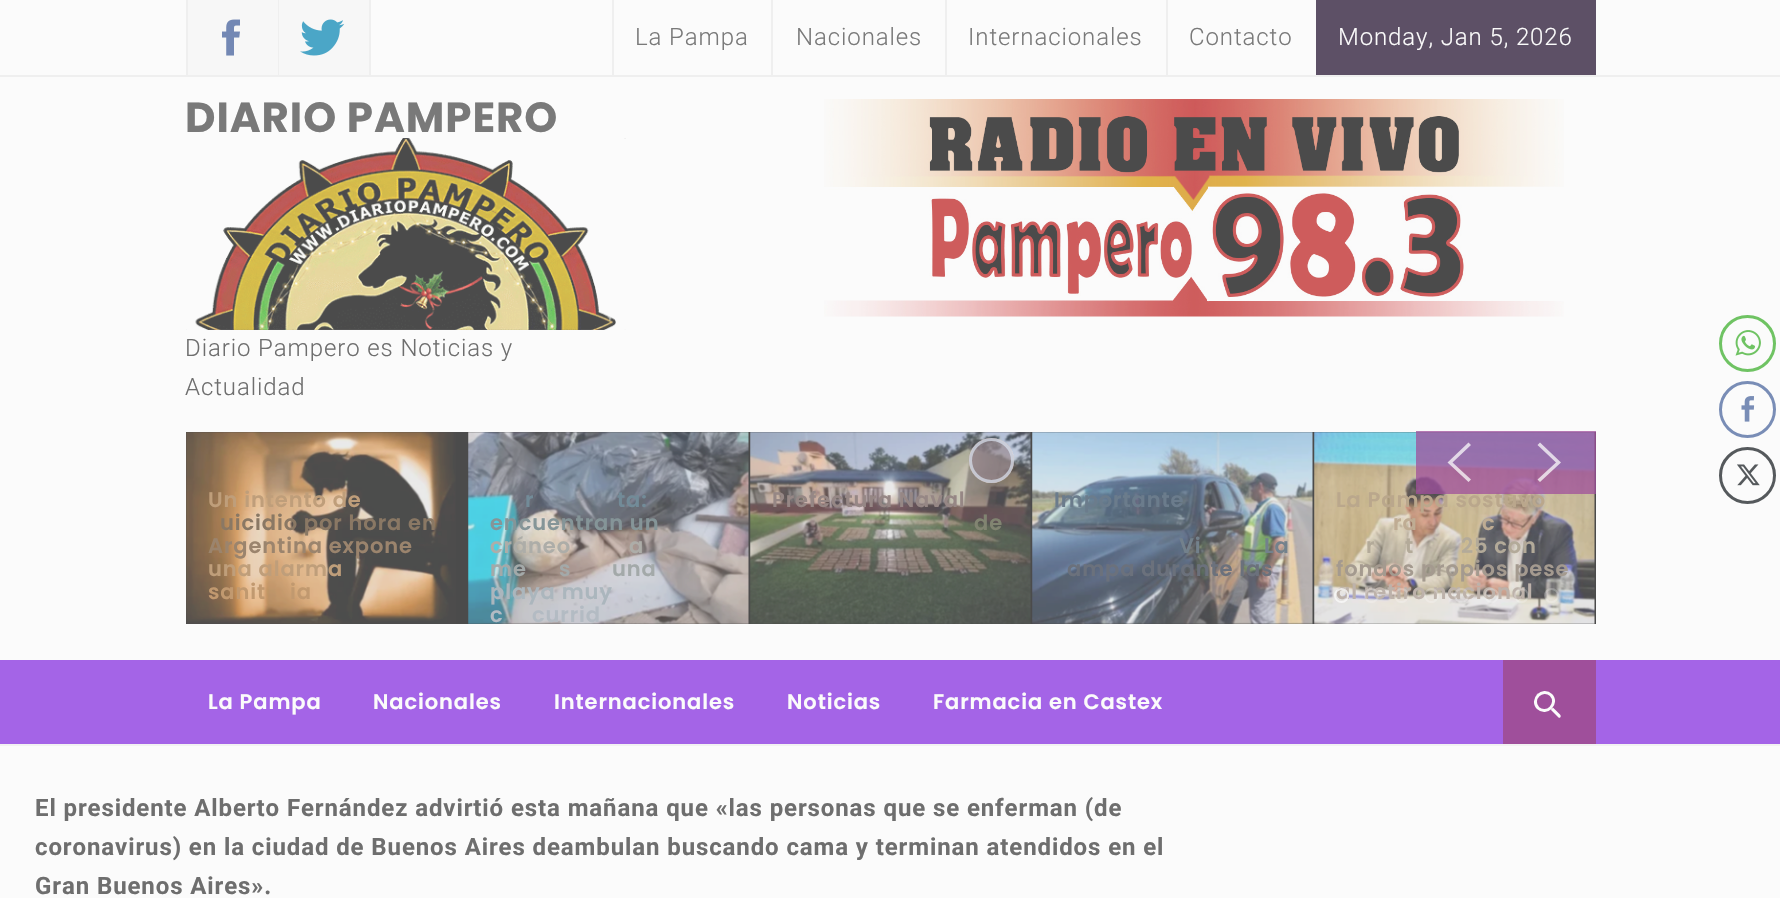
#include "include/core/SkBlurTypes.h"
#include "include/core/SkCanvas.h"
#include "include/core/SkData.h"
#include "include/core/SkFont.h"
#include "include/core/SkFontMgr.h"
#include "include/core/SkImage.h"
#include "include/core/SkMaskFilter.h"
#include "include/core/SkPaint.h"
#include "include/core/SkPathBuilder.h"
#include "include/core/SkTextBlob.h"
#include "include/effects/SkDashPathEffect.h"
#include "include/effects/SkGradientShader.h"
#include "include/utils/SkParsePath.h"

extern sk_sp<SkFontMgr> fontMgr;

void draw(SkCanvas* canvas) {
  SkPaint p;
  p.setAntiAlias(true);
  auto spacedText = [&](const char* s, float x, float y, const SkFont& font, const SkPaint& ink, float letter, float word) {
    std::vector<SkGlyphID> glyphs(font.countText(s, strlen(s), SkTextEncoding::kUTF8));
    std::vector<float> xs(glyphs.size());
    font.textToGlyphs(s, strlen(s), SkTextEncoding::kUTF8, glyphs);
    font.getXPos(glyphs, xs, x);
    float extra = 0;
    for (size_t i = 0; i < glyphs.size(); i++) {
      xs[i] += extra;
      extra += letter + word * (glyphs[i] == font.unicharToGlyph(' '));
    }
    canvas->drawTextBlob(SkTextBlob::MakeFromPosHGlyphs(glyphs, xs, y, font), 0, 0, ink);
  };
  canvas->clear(SkColorSetRGB(251, 251, 251));
  p.setColor(SkColorSetRGB(239, 239, 239));
  canvas->drawRect(SkRect::MakeLTRB(0, 75, 1780, 77), p);
  canvas->drawRect(SkRect::MakeLTRB(278, 0, 279, 75), p);
  canvas->drawRect(SkRect::MakeLTRB(186, 0, 188, 75), p);
  p.setColor(SkColorSetRGB(247, 247, 247));
  canvas->drawRect(SkRect::MakeLTRB(188, 0, 278, 75), p);
  canvas->drawImageRect(SkImages::DeferredFromEncodedData(SkData::MakeFromFileName("images/1.png")), SkRect::MakeLTRB(222, 19, 240, 56), SkSamplingOptions());
  p.setColor(SkColorSetRGB(239, 239, 239));
  canvas->drawRect(SkRect::MakeLTRB(369, 0, 371, 75), p);
  p.setColor(SkColorSetRGB(247, 247, 247));
  canvas->drawRect(SkRect::MakeLTRB(279, 0, 369, 75), p);
  canvas->drawImageRect(SkImages::DeferredFromEncodedData(SkData::MakeFromFileName("images/2.png")), SkRect::MakeLTRB(300, 19, 345, 56), SkSamplingOptions());
  p.setColor(SkColorSetRGB(239, 239, 239));
  canvas->drawRect(SkRect::MakeLTRB(771, 0, 773, 75), p);
  canvas->drawRect(SkRect::MakeLTRB(612, 0, 614, 75), p);
  canvas->drawRect(SkRect::MakeLTRB(945, 0, 947, 75), p);
  canvas->drawRect(SkRect::MakeLTRB(1166, 0, 1168, 75), p);
  p.setColor(SkColorSetRGB(93, 80, 102));
  canvas->drawRect(SkRect::MakeLTRB(1316, 0, 1596, 75), p);
  canvas->drawImageRect(SkImages::DeferredFromEncodedData(SkData::MakeFromFileName("images/3.png")), SkRect::MakeLTRB(186, 138, 626, 330), SkSamplingOptions());
  canvas->drawImageRect(SkImages::DeferredFromEncodedData(SkData::MakeFromFileName("images/4.png")), SkRect::MakeLTRB(824, 99, 1564, 317), SkSamplingOptions());
  p.setColor(SkColorSetRGB(75, 75, 75));
  canvas->drawRect(SkRect::MakeLTRB(186, 432, 1596, 624), p);
  canvas->drawImageRect(SkImages::DeferredFromEncodedData(SkData::MakeFromFileName("images/5.png")), SkRect::MakeLTRB(186, 432, 456, 624), SkSamplingOptions());
  canvas->drawImageRect(SkImages::DeferredFromEncodedData(SkData::MakeFromFileName("images/6.png")), SkRect::MakeLTRB(468, 432, 749, 624), SkSamplingOptions());
  canvas->drawImageRect(SkImages::DeferredFromEncodedData(SkData::MakeFromFileName("images/7.png")), SkRect::MakeLTRB(750, 432, 1031, 624), SkSamplingOptions());
  canvas->drawImageRect(SkImages::DeferredFromEncodedData(SkData::MakeFromFileName("images/8.png")), SkRect::MakeLTRB(1032, 432, 1313, 624), SkSamplingOptions());
  canvas->drawImageRect(SkImages::DeferredFromEncodedData(SkData::MakeFromFileName("images/9.png")), SkRect::MakeLTRB(1314, 432, 1595, 624), SkSamplingOptions());
  p.setStyle(SkPaint::kStroke_Style);
  p.setStrokeWidth(2);
  p.setColor(SkColorSetARGB(64, 251, 251, 251));
  canvas->drawCircle(1551.5f, 595.5f, 6.5f, p);
  p.setStyle(SkPaint::kFill_Style);
  p.setColor(SkColorSetRGB(242, 242, 242));
  canvas->drawPath(SkPathBuilder().moveTo(0, 744).lineTo(0, 746).lineTo(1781, 746).lineTo(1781, 662).lineTo(1780, 662).lineTo(1780, 744).close().detach(), p);
  p.setColor(SkColorSetRGB(164, 100, 231));
  canvas->drawRect(SkRect::MakeLTRB(0, 660, 1780, 744), p);
  p.setColor(SkColorSetRGB(159, 79, 155));
  canvas->drawRect(SkRect::MakeLTRB(1503, 660, 1596, 744), p);
  p.setColor(SkColorSetRGB(251, 251, 251));
  canvas->drawPath(SkPathBuilder().moveTo(1558.5f, 717.5f).lineTo(1537, 696).cubicTo(1536, 694.5f, 1537.5f, 693, 1538.5f, 693.5f).lineTo(1557, 711.5f).cubicTo(1557, 712, 1562, 715, 1560.5f, 717).cubicTo(1560, 718, 1559, 718, 1558.5f, 717.5f).close().detach(), p);
  p.setColor(SkColorSetRGB(159, 79, 155));
  canvas->drawPath(SkPathBuilder().moveTo(1537, 709).cubicTo(1527.5f, 699, 1542, 684.5f, 1552, 694).cubicTo(1561.5f, 704, 1547, 718.5f, 1537, 709).close().detach(), p);
  p.setStyle(SkPaint::kStroke_Style);
  p.setStrokeWidth(3);
  p.setColor(SkColorSetRGB(251, 251, 251));
  canvas->drawPath(SkPathBuilder().moveTo(1538, 708).cubicTo(1530, 699.5f, 1542.5f, 687, 1551, 695).cubicTo(1559, 703.5f, 1546.5f, 716, 1538, 708).close().detach(), p);
  p.setColor(SkColorSetRGB(111, 195, 99));
  canvas->drawCircle(1747.5f, 343.5f, 27, p);
  canvas->drawImageRect(SkImages::DeferredFromEncodedData(SkData::MakeFromFileName("images/10.png")), SkRect::MakeLTRB(1735, 330, 1761, 356), SkSamplingOptions());
  p.setColor(SkColorSetRGB(121, 141, 182));
  canvas->drawCircle(1747.5f, 409.5f, 27, p);
  canvas->drawImageRect(SkImages::DeferredFromEncodedData(SkData::MakeFromFileName("images/11.png")), SkRect::MakeLTRB(1741, 396, 1755, 422), SkSamplingOptions());
  p.setColor(SkColorSetRGB(85, 89, 92));
  canvas->drawCircle(1747.5f, 475.5f, 27, p);
  canvas->drawImageRect(SkImages::DeferredFromEncodedData(SkData::MakeFromFileName("images/12.png")), SkRect::MakeLTRB(1737, 464, 1760, 486), SkSamplingOptions());
  p.setStyle(SkPaint::kFill_Style);
  p.setColor(SkColorSetARGB(79, 209, 72, 54));
  canvas->drawCircle(991.5f, 460.5f, 22.5f, p);
  p.setStyle(SkPaint::kStroke_Style);
  p.setColor(SkColorSetARGB(79, 255, 255, 255));
  canvas->drawCircle(991.5f, 460.5f, 21, p);
  p.setStyle(SkPaint::kFill_Style);
  p.setColor(SkColorSetARGB(79, 233, 179, 48));
  canvas->drawCircle(991.5f, 460.5f, 22.5f, p);
  p.setStyle(SkPaint::kStroke_Style);
  p.setColor(SkColorSetARGB(79, 255, 255, 255));
  canvas->drawCircle(991.5f, 460.5f, 21, p);
  p.setStyle(SkPaint::kFill_Style);
  p.setColor(SkColorSetARGB(79, 66, 133, 244));
  canvas->drawCircle(991.5f, 460.5f, 22.5f, p);
  p.setStyle(SkPaint::kStroke_Style);
  p.setColor(SkColorSetARGB(79, 255, 255, 255));
  canvas->drawCircle(991.5f, 460.5f, 21, p);
  SkFont font1(fontMgr->matchFamilyStyle("Roboto", SkFontStyle(300, SkFontStyle::kNormal_Width, SkFontStyle::kUpright_Slant)), 24);
  font1.setSubpixel(true);
  p.setStyle(SkPaint::kFill_Style);
  p.setColor(SkColorSetRGB(121, 121, 121));
  spacedText("La Pampa", 635, 45, font1, p, 0.9f, 0);
  spacedText("Nacionales", 796, 45, font1, p, 0.9f, 0);
  spacedText("Internacionales", 968, 45, font1, p, 0.9f, 0);
  spacedText("Contacto", 1189, 45, font1, p, 0.9f, 0);
  p.setColor(SkColorSetRGB(251, 251, 251));
  spacedText("Monday, Jan 5, 2026", 1338, 45, font1, p, 0.9f, 0);
  SkFont font2(fontMgr->matchFamilyStyle("Poppins", SkFontStyle::Bold()), 42);
  font2.setSubpixel(true);
  p.setColor(SkColorSetRGB(121, 121, 121));
  spacedText("DIARIO PAMPERO", 185, 132, font2, p, 0.9f, 0);
  p.setColor(SkColorSetRGB(110, 110, 110));
  spacedText("Diario Pampero es Noticias y", 185, 356, font1, p, 0.9f, 0);
  spacedText("Actualidad", 185, 395, font1, p, 0.9f, 0);
  SkFont font3(fontMgr->matchFamilyStyle("Poppins", SkFontStyle(600, SkFontStyle::kNormal_Width, SkFontStyle::kUpright_Slant)), 21);
  font3.setSubpixel(true);
  p.setColor(SkColorSetRGB(191, 158, 122));
  spacedText("Un intento de", 208, 507, font3, p, 0.9f, 0);
  p.setColor(SkColorSetRGB(138, 120, 100));
  spacedText("uicidio por hora en", 220, 530, font3, p, 0.9f, 0);
  p.setColor(SkColorSetRGB(155, 132, 109));
  spacedText("Argentina expone", 208, 553, font3, p, 0.9f, 0);
  p.setColor(SkColorSetRGB(191, 158, 122));
  spacedText("una alarma", 208, 576, font3, p, 0.9f, 0);
  p.setColor(SkColorSetRGB(193, 153, 111));
  spacedText("sanit", 208, 599, font3, p, 0.9f, 0);
  spacedText("ia", 290, 599, font3, p, 0.9f, 0);
  p.setColor(SkColorSetRGB(114, 139, 152));
  spacedText("r", 525, 507, font3, p, 0.9f, 0);
  spacedText("ta:", 617, 507, font3, p, 0.9f, 0);
  p.setColor(SkColorSetRGB(133, 149, 152));
  spacedText("encuentran un", 490, 530, font3, p, 0.9f, 0);
  p.setColor(SkColorSetRGB(173, 173, 168));
  spacedText("cráneo", 490, 553, font3, p, 0.9f, 0);
  spacedText("a", 629, 553, font3, p, 0.9f, 0);
  p.setColor(SkColorSetRGB(163, 169, 169));
  spacedText("me", 490, 576, font3, p, 0.9f, 0);
  spacedText("s", 559, 576, font3, p, 0.9f, 0);
  spacedText("una", 612, 576, font3, p, 0.9f, 0);
  p.setColor(SkColorSetRGB(171, 182, 189));
  spacedText("playa muy", 490, 599, font3, p, 0.9f, 0);
  p.setColor(SkColorSetRGB(179, 187, 195));
  spacedText("c", 490, 622, font3, p, 0.9f, 0);
  spacedText("currid", 532, 622, font3, p, 0.9f, 0);
  p.setColor(SkColorSetRGB(150, 135, 133));
  spacedText("Prefectura Naval", 772, 507, font3, p, 0.9f, 0);
  p.setColor(SkColorSetRGB(129, 132, 113));
  spacedText("de", 974, 530, font3, p, 0.9f, 0);
  p.setColor(SkColorSetRGB(107, 124, 140));
  spacedText("Importante", 1054, 507, font3, p, 0.9f, 0);
  p.setColor(SkColorSetRGB(115, 129, 140));
  spacedText("Vi", 1179, 553, font3, p, 0.9f, 0);
  spacedText("La", 1264, 553, font3, p, 0.9f, 0);
  p.setColor(SkColorSetRGB(107, 113, 124));
  spacedText("ampa durante las", 1067, 576, font3, p, 0.9f, 0);
  p.setColor(SkColorSetRGB(186, 167, 140));
  spacedText("La Pampa sostuvo", 1336, 507, font3, p, 0.9f, 0);
  p.setColor(SkColorSetARGB(191, 159, 79, 155));
  canvas->drawRect(SkRect::MakeLTRB(1506, 431, 1596, 494), p);
  p.setColor(SkColorSetARGB(191, 251, 251, 251));
  canvas->drawPath(SkPathBuilder().moveTo(1537.5f, 445).lineTo(1540, 442.5f).lineTo(1561, 462.5f).lineTo(1540, 482).lineTo(1537.5f, 479.5f).lineTo(1556, 462.5f).close().detach(), p);
  p.setColor(SkColorSetARGB(191, 159, 79, 155));
  canvas->drawRect(SkRect::MakeLTRB(1416, 431, 1506, 494), p);
  p.setColor(SkColorSetARGB(191, 251, 251, 251));
  canvas->drawPath(SkPathBuilder().moveTo(1471, 445).lineTo(1452.5f, 462.5f).lineTo(1471, 479.5f).lineTo(1468.5f, 482).lineTo(1447.5f, 462.5f).lineTo(1468.5f, 442.5f).close().detach(), p);
  p.setColor(SkColorSetRGB(191, 172, 147));
  spacedText("ra", 1393, 530, font3, p, 0.9f, 0);
  spacedText("c", 1482, 530, font3, p, 0.9f, 0);
  p.setColor(SkColorSetRGB(179, 170, 153));
  spacedText("r", 1366, 553, font3, p, 0.9f, 0);
  spacedText("t", 1405, 553, font3, p, 0.9f, 0);
  spacedText("25 con", 1461, 553, font3, p, 0.9f, 0);
  p.setColor(SkColorSetRGB(164, 154, 143));
  spacedText("fondos propios pese", 1336, 576, font3, p, 0.9f, 0);
  p.setColor(SkColorSetRGB(189, 178, 170));
  spacedText("al retiro nacional", 1336, 599, font3, p, 0.9f, 0);
  p.setStyle(SkPaint::kStroke_Style);
  p.setStrokeWidth(2);
  p.setColor(SkColorSetARGB(191, 251, 251, 251));
  canvas->drawCircle(1341.5f, 595.5f, 6.5f, p);
  p.setColor(SkColorSetARGB(64, 251, 251, 251));
  canvas->drawCircle(1371.5f, 595.5f, 6.5f, p);
  canvas->drawCircle(1401.5f, 595.5f, 6.5f, p);
  canvas->drawCircle(1431.5f, 595.5f, 6.5f, p);
  canvas->drawCircle(1461.5f, 595.5f, 6.5f, p);
  canvas->drawCircle(1491.5f, 595.5f, 6.5f, p);
  canvas->drawCircle(1521.5f, 595.5f, 6.5f, p);
  p.setStyle(SkPaint::kFill_Style);
  p.setColor(SkColorSetRGB(251, 251, 251));
  spacedText("La Pampa", 208, 709, font3, p, 0.9f, 0);
  spacedText("Nacionales", 373, 709, font3, p, 0.9f, 0);
  spacedText("Internacionales", 554, 709, font3, p, 0.9f, 0);
  spacedText("Noticias", 787, 709, font3, p, 0.9f, 0);
  spacedText("Farmacia en Castex", 933, 709, font3, p, 0.9f, 0);
  SkFont font4(fontMgr->matchFamilyStyle("Roboto", SkFontStyle::Bold()), 24);
  font4.setSubpixel(true);
  p.setColor(SkColorSetRGB(110, 110, 110));
  spacedText("El presidente Alberto Fernández advirtió esta mañana que «las personas que se enferman (de", 35, 816, font4, p, 0.9f, 0);
  spacedText("coronavirus) en la ciudad de Buenos Aires deambulan buscando cama y terminan atendidos en el", 35, 855, font4, p, 0.9f, 0);
  spacedText("Gran Buenos Aires».", 35, 894, font4, p, 0.9f, 0);
}
